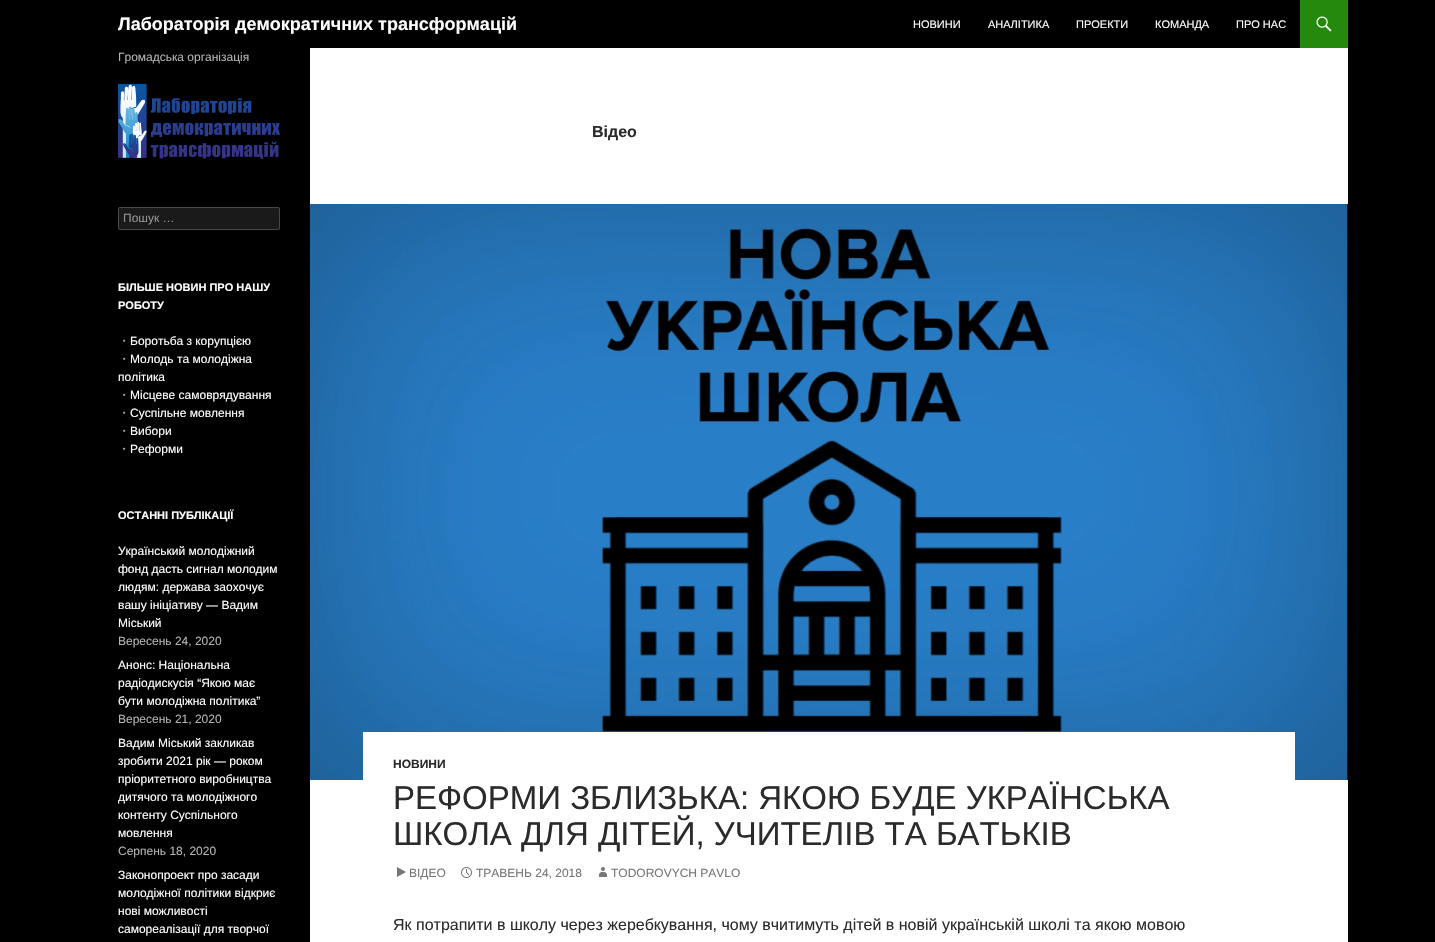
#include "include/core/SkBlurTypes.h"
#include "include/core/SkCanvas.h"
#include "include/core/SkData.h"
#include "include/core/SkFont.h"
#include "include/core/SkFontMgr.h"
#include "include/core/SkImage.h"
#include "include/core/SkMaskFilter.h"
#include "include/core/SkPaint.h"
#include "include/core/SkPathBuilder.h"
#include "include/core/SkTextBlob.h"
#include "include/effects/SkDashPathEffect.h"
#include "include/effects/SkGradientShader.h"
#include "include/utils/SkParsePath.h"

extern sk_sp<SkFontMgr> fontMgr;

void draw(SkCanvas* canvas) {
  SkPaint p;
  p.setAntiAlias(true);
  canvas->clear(SK_ColorBLACK);
  p.setColor(SK_ColorWHITE);
  canvas->drawRect(SkRect::MakeLTRB(310, 48, 1348, 942), p);
  p.setColor(SkColorSetRGB(36, 137, 13));
  canvas->drawRect(SkRect::MakeLTRB(1300, 0, 1348, 48), p);
  canvas->drawImageRect(SkImages::DeferredFromEncodedData(SkData::MakeFromFileName("images/1.png")), SkRect::MakeLTRB(1316, 16, 1332, 32), SkSamplingOptions());
  canvas->drawImageRect(SkImages::DeferredFromEncodedData(SkData::MakeFromFileName("images/2.png")), SkRect::MakeLTRB(118, 84, 280, 159), SkSamplingOptions());
  p.setColor(SkColorSetRGB(26, 26, 26));
  canvas->drawRoundRect(SkRect::MakeLTRB(118, 207, 280, 230), 2, 2, p);
  p.setStyle(SkPaint::kStroke_Style);
  p.setStrokeWidth(1);
  p.setColor(SkColorSetARGB(51, 255, 255, 255));
  canvas->drawRoundRect(SkRect::MakeLTRB(118.5f, 207.5f, 279.5f, 229.5f), 1.5f, 1.5f, p);
  canvas->drawImageRect(SkImages::DeferredFromEncodedData(SkData::MakeFromFileName("images/3.png")), SkRect::MakeLTRB(310, 204, 1348, 780), SkSamplingOptions());
  p.setStyle(SkPaint::kFill_Style);
  p.setColor(SK_ColorWHITE);
  canvas->drawRect(SkRect::MakeLTRB(363, 732, 1295, 780), p);
  p.setColor(SkColorSetRGB(118, 118, 118));
  canvas->drawPath(SkPathBuilder().moveTo(397, 877).lineTo(397, 867).lineTo(406, 872).close().detach(), p);
  canvas->drawImageRect(SkImages::DeferredFromEncodedData(SkData::MakeFromFileName("images/4.png")), SkRect::MakeLTRB(461, 867, 472, 878), SkSamplingOptions());
  canvas->drawImageRect(SkImages::DeferredFromEncodedData(SkData::MakeFromFileName("images/5.png")), SkRect::MakeLTRB(599, 867, 607, 877), SkSamplingOptions());
  canvas->save();
  canvas->clipRect(SkRect::MakeLTRB(118, 0, 517, 48));
  SkFont font1(fontMgr->matchFamilyStyle("Liberation Sans", SkFontStyle::Bold()), 18);
  font1.setSubpixel(true);
  p.setColor(SK_ColorWHITE);
  canvas->drawString("Лабораторія демократичних трансформацій", 118, 30, font1, p);
  canvas->restore();
  SkFont font2(fontMgr->matchFamilyStyle("Liberation Sans", SkFontStyle::Normal()), 11);
  font2.setSubpixel(true);
  canvas->drawString("НОВИНИ", 913, 28, font2, p);
  canvas->drawString("АНАЛІТИКА", 988, 28, font2, p);
  canvas->drawString("ПРОЕКТИ", 1076, 28, font2, p);
  canvas->drawString("КОМАНДА", 1155, 28, font2, p);
  canvas->drawString("ПРО НАС", 1236, 28, font2, p);
  SkFont font3(fontMgr->matchFamilyStyle("Liberation Sans", SkFontStyle::Normal()), 12);
  font3.setSubpixel(true);
  p.setColor(SkColorSetRGB(179, 179, 179));
  canvas->drawString("Громадська організація", 118, 61, font3, p);
  p.setColor(SkColorSetRGB(147, 147, 147));
  canvas->drawString("Пошук …", 123, 222, font3, p);
  SkFont font4(fontMgr->matchFamilyStyle("Liberation Sans", SkFontStyle::Bold()), 11);
  font4.setSubpixel(true);
  p.setColor(SK_ColorWHITE);
  canvas->drawString("БІЛЬШЕ НОВИН ПРО НАШУ", 118, 291, font4, p);
  canvas->drawString("РОБОТУ", 118, 309, font4, p);
  SkFont font5(fontMgr->matchFamilyStyle("WenQuanYi Zen Hei", SkFontStyle(500, SkFontStyle::kNormal_Width, SkFontStyle::kUpright_Slant)), 12);
  font5.setSubpixel(true);
  p.setColor(SkColorSetRGB(179, 179, 179));
  canvas->drawString("・", 118, 345, font5, p);
  p.setColor(SK_ColorWHITE);
  canvas->drawString("Боротьба з корупцією", 130, 345, font3, p);
  p.setColor(SkColorSetRGB(179, 179, 179));
  canvas->drawString("・", 118, 363, font5, p);
  p.setColor(SK_ColorWHITE);
  canvas->drawString("Молодь та молодіжна", 130, 363, font3, p);
  canvas->drawString("політика", 118, 381, font3, p);
  p.setColor(SkColorSetRGB(179, 179, 179));
  canvas->drawString("・", 118, 399, font5, p);
  p.setColor(SK_ColorWHITE);
  canvas->drawString("Місцеве самоврядування", 130, 399, font3, p);
  p.setColor(SkColorSetRGB(179, 179, 179));
  canvas->drawString("・", 118, 417, font5, p);
  p.setColor(SK_ColorWHITE);
  canvas->drawString("Суспільне мовлення", 130, 417, font3, p);
  p.setColor(SkColorSetRGB(179, 179, 179));
  canvas->drawString("・", 118, 435, font5, p);
  p.setColor(SK_ColorWHITE);
  canvas->drawString("Вибори", 130, 435, font3, p);
  p.setColor(SkColorSetRGB(179, 179, 179));
  canvas->drawString("・", 118, 453, font5, p);
  p.setColor(SK_ColorWHITE);
  canvas->drawString("Реформи", 130, 453, font3, p);
  canvas->drawString("ОСТАННІ ПУБЛІКАЦІЇ", 118, 519, font4, p);
  canvas->drawString("Український молодіжний", 118, 555, font3, p);
  canvas->drawString("фонд дасть сигнал молодим", 118, 573, font3, p);
  canvas->drawString("людям: держава заохочує", 118, 591, font3, p);
  canvas->drawString("вашу ініціативу — Вадим", 118, 609, font3, p);
  canvas->drawString("Міський", 118, 627, font3, p);
  p.setColor(SkColorSetRGB(179, 179, 179));
  canvas->drawString("Вересень 24, 2020", 118, 645, font3, p);
  p.setColor(SK_ColorWHITE);
  canvas->drawString("Анонс: Національна", 118, 669, font3, p);
  canvas->drawString("радіодискусія “Якою має", 118, 687, font3, p);
  canvas->drawString("бути молодіжна політика”", 118, 705, font3, p);
  p.setColor(SkColorSetRGB(179, 179, 179));
  canvas->drawString("Вересень 21, 2020", 118, 723, font3, p);
  p.setColor(SK_ColorWHITE);
  canvas->drawString("Вадим Міський закликав", 118, 747, font3, p);
  canvas->drawString("зробити 2021 рік — роком", 118, 765, font3, p);
  canvas->drawString("пріоритетного виробництва", 118, 783, font3, p);
  canvas->drawString("дитячого та молодіжного", 118, 801, font3, p);
  canvas->drawString("контенту Суспільного", 118, 819, font3, p);
  canvas->drawString("мовлення", 118, 837, font3, p);
  p.setColor(SkColorSetRGB(179, 179, 179));
  canvas->drawString("Серпень 18, 2020", 118, 855, font3, p);
  p.setColor(SK_ColorWHITE);
  canvas->drawString("Законопроект про засади", 118, 879, font3, p);
  canvas->drawString("молодіжної політики відкриє", 118, 897, font3, p);
  canvas->drawString("нові можливості", 118, 915, font3, p);
  canvas->drawString("самореалізації для творчої", 118, 933, font3, p);
  SkFont font6(fontMgr->matchFamilyStyle("Liberation Sans", SkFontStyle::Bold()), 16);
  font6.setSubpixel(true);
  p.setColor(SkColorSetRGB(43, 43, 43));
  canvas->drawString("Відео", 592, 137, font6, p);
  SkFont font7(fontMgr->matchFamilyStyle("Liberation Sans", SkFontStyle::Bold()), 12);
  font7.setSubpixel(true);
  canvas->drawString("НОВИНИ", 393, 768, font7, p);
  SkFont font8(fontMgr->matchFamilyStyle("Liberation Sans", SkFontStyle::Normal()), 33);
  font8.setSubpixel(true);
  canvas->drawString("РЕФОРМИ ЗБЛИЗЬКА: ЯКОЮ БУДЕ УКРАЇНСЬКА", 393, 809, font8, p);
  canvas->drawString("ШКОЛА ДЛЯ ДІТЕЙ, УЧИТЕЛІВ ТА БАТЬКІВ", 393, 845, font8, p);
  p.setColor(SkColorSetRGB(118, 118, 118));
  canvas->drawString("ВІДЕО", 409, 877, font3, p);
  canvas->drawString("ТРАВЕНЬ 24, 2018", 476, 877, font3, p);
  canvas->drawString("TODOROVYCH PAVLO", 611, 877, font3, p);
  SkFont font9(fontMgr->matchFamilyStyle("Liberation Sans", SkFontStyle::Normal()), 16);
  font9.setSubpixel(true);
  p.setColor(SkColorSetRGB(43, 43, 43));
  canvas->drawString("Як потрапити в школу через жеребкування, чому вчитимуть дітей в новій українській школі та якою мовою", 393, 930, font9, p);
}
